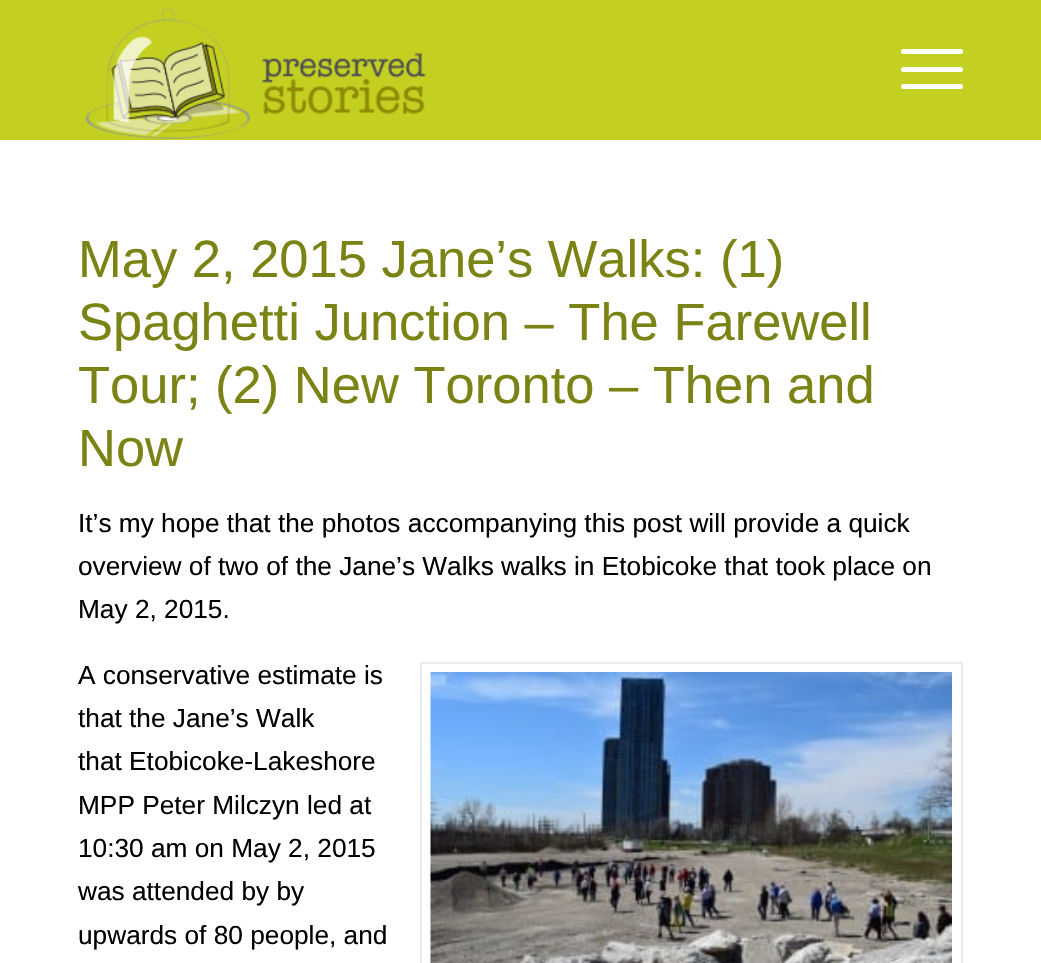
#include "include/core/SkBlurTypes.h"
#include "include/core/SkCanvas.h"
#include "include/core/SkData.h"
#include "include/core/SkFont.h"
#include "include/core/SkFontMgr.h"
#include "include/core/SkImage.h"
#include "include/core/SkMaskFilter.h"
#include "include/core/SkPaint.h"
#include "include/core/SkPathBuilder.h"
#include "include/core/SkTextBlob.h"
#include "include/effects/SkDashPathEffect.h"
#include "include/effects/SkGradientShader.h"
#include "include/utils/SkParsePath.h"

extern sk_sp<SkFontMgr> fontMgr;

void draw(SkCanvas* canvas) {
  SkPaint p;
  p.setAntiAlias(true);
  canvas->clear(SK_ColorWHITE);
  p.setColor(SkColorSetRGB(196, 208, 33));
  canvas->drawRect(SkRect::MakeLTRB(0, 0, 1041, 140), p);
  canvas->drawImageRect(SkImages::DeferredFromEncodedData(SkData::MakeFromFileName("images/1.png")), SkRect::MakeLTRB(86, 7, 426, 139), SkSamplingOptions());
  p.setColor(SK_ColorWHITE);
  canvas->drawRoundRect(SkRect::MakeLTRB(901, 67, 963, 72), 2.5f, 2.5f, p);
  canvas->drawRoundRect(SkRect::MakeLTRB(901, 49, 963, 54), 2.5f, 2.5f, p);
  canvas->drawRoundRect(SkRect::MakeLTRB(901, 84, 963, 89), 2.5f, 2.5f, p);
  p.setStyle(SkPaint::kStroke_Style);
  p.setStrokeWidth(2);
  p.setColor(SkColorSetRGB(235, 235, 235));
  canvas->drawRect(SkRect::MakeLTRB(421, 663, 962, 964), p);
  canvas->drawImageRect(SkImages::DeferredFromEncodedData(SkData::MakeFromFileName("images/2.png")), SkRect::MakeLTRB(430, 672, 952, 963), SkSamplingOptions());
  SkFont font1(fontMgr->matchFamilyStyle("Liberation Sans", SkFontStyle::Normal()), 52.5f);
  font1.setSubpixel(true);
  p.setStyle(SkPaint::kFill_Style);
  p.setColor(SkColorSetRGB(122, 131, 20));
  canvas->drawString("May 2, 2015 Jane’s Walks: (1)", 78, 277, font1, p);
  canvas->drawString("Spaghetti Junction – The Farewell", 78, 340, font1, p);
  canvas->drawString("Tour; (2) New Toronto – Then and", 78, 403, font1, p);
  canvas->drawString("Now", 78, 466, font1, p);
  SkFont font2(fontMgr->matchFamilyStyle("Liberation Sans", SkFontStyle::Normal()), 26.25f);
  font2.setSubpixel(true);
  p.setColor(SK_ColorBLACK);
  canvas->drawString("It’s my hope that the photos accompanying this post will provide a quick", 78, 532, font2, p);
  canvas->drawString("overview of two of the Jane’s Walks walks in Etobicoke that took place on", 78, 575, font2, p);
  canvas->drawString("May 2, 2015.", 78, 618, font2, p);
  canvas->drawString("A conservative estimate is", 78, 684, font2, p);
  canvas->drawString("that the Jane’s Walk", 78, 727, font2, p);
  canvas->drawString("that Etobicoke-Lakeshore", 78, 770, font2, p);
  canvas->drawString("MPP Peter Milczyn led at", 78, 814, font2, p);
  canvas->drawString("10:30 am on May 2, 2015", 78, 857, font2, p);
  canvas->drawString("was attended by by", 78, 900, font2, p);
  canvas->drawString("upwards of 80 people, and", 78, 944, font2, p);
}
